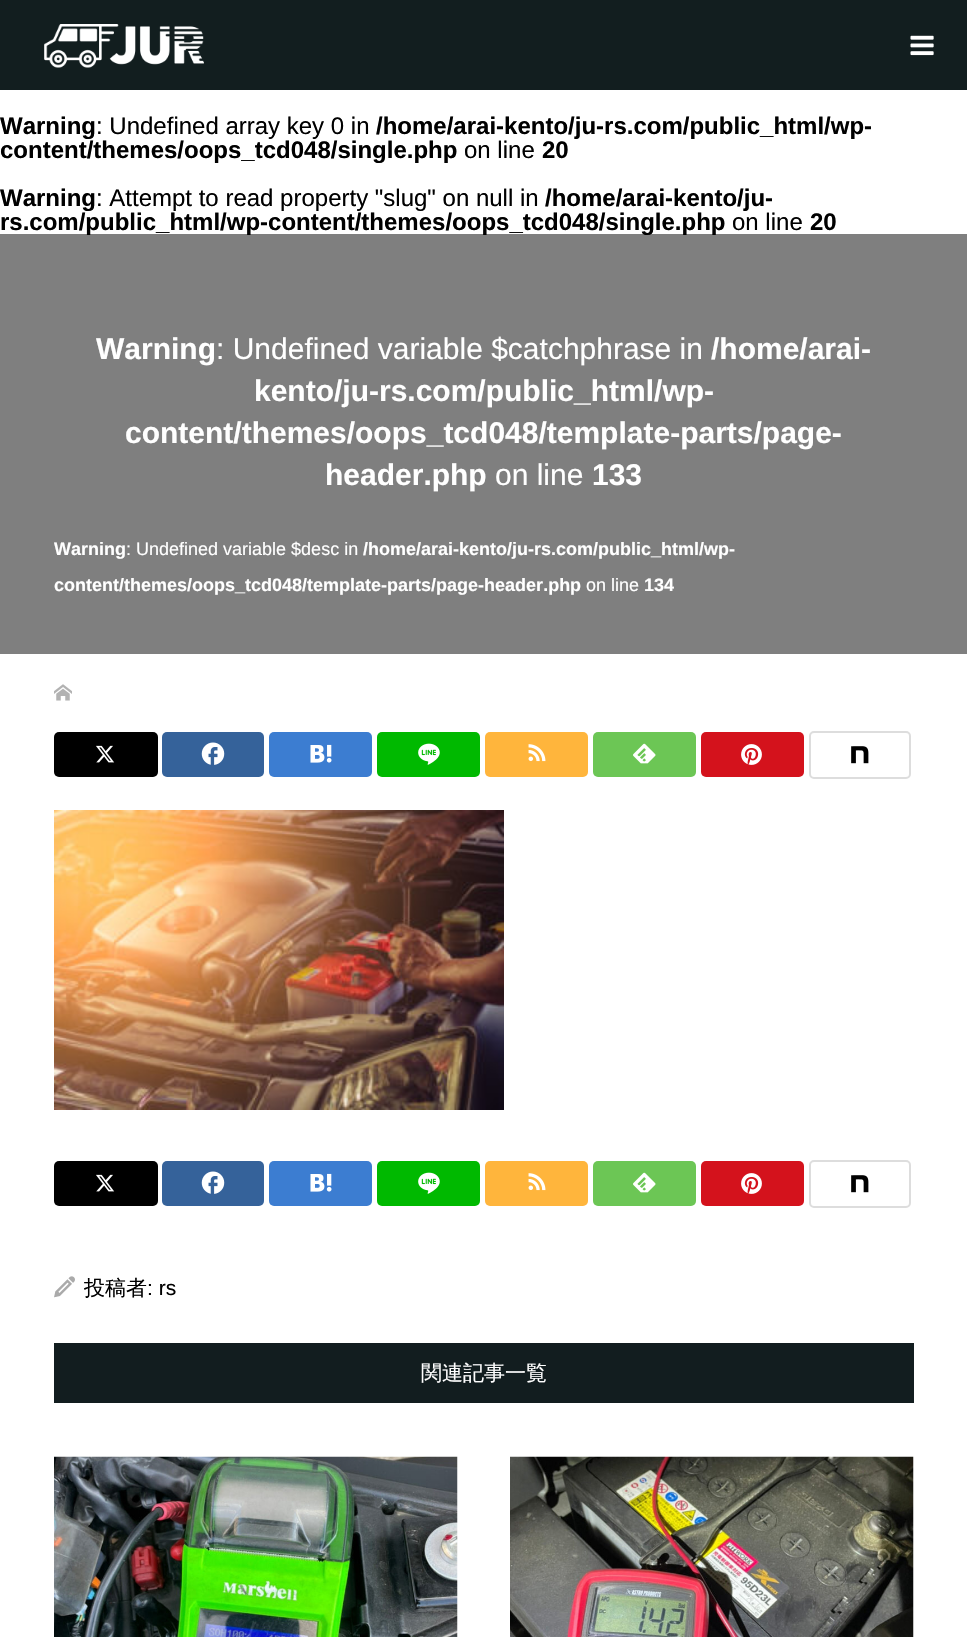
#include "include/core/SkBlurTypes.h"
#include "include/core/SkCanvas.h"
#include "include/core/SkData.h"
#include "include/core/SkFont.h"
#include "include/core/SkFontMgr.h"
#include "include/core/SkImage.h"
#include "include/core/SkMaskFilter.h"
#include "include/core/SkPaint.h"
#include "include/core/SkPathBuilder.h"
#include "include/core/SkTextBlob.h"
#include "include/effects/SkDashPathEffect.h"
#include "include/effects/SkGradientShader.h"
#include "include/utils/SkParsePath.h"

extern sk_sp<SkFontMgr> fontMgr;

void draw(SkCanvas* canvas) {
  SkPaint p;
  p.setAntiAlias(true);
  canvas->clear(SK_ColorWHITE);
  p.setColor(SkColorSetRGB(18, 30, 31));
  canvas->drawRect(SkRect::MakeLTRB(0, 0, 967, 90), p);
  canvas->drawImageRect(SkImages::DeferredFromEncodedData(SkData::MakeFromFileName("images/1.png")), SkRect::MakeLTRB(44, 24, 204, 68), SkSamplingOptions());
  canvas->drawImageRect(SkImages::DeferredFromEncodedData(SkData::MakeFromFileName("images/2.png")), SkRect::MakeLTRB(910, 35, 934, 56), SkSamplingOptions());
  canvas->drawImageRect(SkImages::DeferredFromEncodedData(SkData::MakeFromFileName("images/3.png")), SkRect::MakeLTRB(54, 684, 72, 701), SkSamplingOptions());
  p.setColor(SK_ColorBLACK);
  canvas->drawRoundRect(SkRect::MakeLTRB(54, 732, 158, 777), 5, 5, p);
  canvas->drawImageRect(SkImages::DeferredFromEncodedData(SkData::MakeFromFileName("images/4.png")), SkRect::MakeLTRB(96, 745, 115, 763), SkSamplingOptions());
  p.setColor(SkColorSetRGB(53, 98, 154));
  canvas->drawRoundRect(SkRect::MakeLTRB(162, 732, 264, 777), 5, 5, p);
  canvas->drawImageRect(SkImages::DeferredFromEncodedData(SkData::MakeFromFileName("images/5.png")), SkRect::MakeLTRB(201, 742, 225, 765), SkSamplingOptions());
  p.setColor(SkColorSetRGB(60, 125, 209));
  canvas->drawRoundRect(SkRect::MakeLTRB(269, 732, 372, 777), 5, 5, p);
  canvas->drawImageRect(SkImages::DeferredFromEncodedData(SkData::MakeFromFileName("images/6.png")), SkRect::MakeLTRB(310, 744, 332, 763), SkSamplingOptions());
  p.setColor(SkColorSetRGB(0, 185, 0));
  canvas->drawRoundRect(SkRect::MakeLTRB(377, 732, 480, 777), 5, 5, p);
  canvas->drawImageRect(SkImages::DeferredFromEncodedData(SkData::MakeFromFileName("images/7.png")), SkRect::MakeLTRB(418, 743, 440, 765), SkSamplingOptions());
  p.setColor(SkColorSetRGB(255, 181, 60));
  canvas->drawRoundRect(SkRect::MakeLTRB(485, 732, 588, 777), 5, 5, p);
  canvas->drawImageRect(SkImages::DeferredFromEncodedData(SkData::MakeFromFileName("images/8.png")), SkRect::MakeLTRB(528, 744, 546, 762), SkSamplingOptions());
  p.setColor(SkColorSetRGB(108, 198, 85));
  canvas->drawRoundRect(SkRect::MakeLTRB(593, 732, 696, 777), 5, 5, p);
  canvas->drawImageRect(SkImages::DeferredFromEncodedData(SkData::MakeFromFileName("images/9.png")), SkRect::MakeLTRB(633, 743, 656, 764), SkSamplingOptions());
  p.setColor(SkColorSetRGB(212, 18, 28));
  canvas->drawRoundRect(SkRect::MakeLTRB(701, 732, 804, 777), 5, 5, p);
  canvas->drawImageRect(SkImages::DeferredFromEncodedData(SkData::MakeFromFileName("images/10.png")), SkRect::MakeLTRB(741, 744, 762, 765), SkSamplingOptions());
  p.setStyle(SkPaint::kStroke_Style);
  p.setStrokeWidth(2);
  p.setColor(SkColorSetRGB(221, 221, 221));
  canvas->drawRoundRect(SkRect::MakeLTRB(810, 732, 910, 778), 4, 4, p);
  canvas->drawImageRect(SkImages::DeferredFromEncodedData(SkData::MakeFromFileName("images/11.png")), SkRect::MakeLTRB(851, 746, 869, 764), SkSamplingOptions());
  canvas->drawImageRect(SkImages::DeferredFromEncodedData(SkData::MakeFromFileName("images/12.png")), SkRect::MakeLTRB(54, 810, 504, 1110), SkSamplingOptions());
  p.setStyle(SkPaint::kFill_Style);
  p.setColor(SK_ColorBLACK);
  canvas->drawRoundRect(SkRect::MakeLTRB(54, 1161, 158, 1206), 5, 5, p);
  canvas->drawImageRect(SkImages::DeferredFromEncodedData(SkData::MakeFromFileName("images/4.png")), SkRect::MakeLTRB(96, 1174, 115, 1192), SkSamplingOptions());
  p.setColor(SkColorSetRGB(53, 98, 154));
  canvas->drawRoundRect(SkRect::MakeLTRB(162, 1161, 264, 1206), 5, 5, p);
  canvas->drawImageRect(SkImages::DeferredFromEncodedData(SkData::MakeFromFileName("images/5.png")), SkRect::MakeLTRB(201, 1171, 225, 1194), SkSamplingOptions());
  p.setColor(SkColorSetRGB(60, 125, 209));
  canvas->drawRoundRect(SkRect::MakeLTRB(269, 1161, 372, 1206), 5, 5, p);
  canvas->drawImageRect(SkImages::DeferredFromEncodedData(SkData::MakeFromFileName("images/6.png")), SkRect::MakeLTRB(310, 1173, 332, 1192), SkSamplingOptions());
  p.setColor(SkColorSetRGB(0, 185, 0));
  canvas->drawRoundRect(SkRect::MakeLTRB(377, 1161, 480, 1206), 5, 5, p);
  canvas->drawImageRect(SkImages::DeferredFromEncodedData(SkData::MakeFromFileName("images/7.png")), SkRect::MakeLTRB(418, 1172, 440, 1194), SkSamplingOptions());
  p.setColor(SkColorSetRGB(255, 181, 60));
  canvas->drawRoundRect(SkRect::MakeLTRB(485, 1161, 588, 1206), 5, 5, p);
  canvas->drawImageRect(SkImages::DeferredFromEncodedData(SkData::MakeFromFileName("images/8.png")), SkRect::MakeLTRB(528, 1173, 546, 1191), SkSamplingOptions());
  p.setColor(SkColorSetRGB(108, 198, 85));
  canvas->drawRoundRect(SkRect::MakeLTRB(593, 1161, 696, 1206), 5, 5, p);
  canvas->drawImageRect(SkImages::DeferredFromEncodedData(SkData::MakeFromFileName("images/9.png")), SkRect::MakeLTRB(633, 1172, 656, 1193), SkSamplingOptions());
  p.setColor(SkColorSetRGB(212, 18, 28));
  canvas->drawRoundRect(SkRect::MakeLTRB(701, 1161, 804, 1206), 5, 5, p);
  canvas->drawImageRect(SkImages::DeferredFromEncodedData(SkData::MakeFromFileName("images/10.png")), SkRect::MakeLTRB(741, 1173, 762, 1194), SkSamplingOptions());
  p.setStyle(SkPaint::kStroke_Style);
  p.setColor(SkColorSetRGB(221, 221, 221));
  canvas->drawRoundRect(SkRect::MakeLTRB(810, 1161, 910, 1207), 4, 4, p);
  canvas->drawImageRect(SkImages::DeferredFromEncodedData(SkData::MakeFromFileName("images/11.png")), SkRect::MakeLTRB(851, 1175, 869, 1193), SkSamplingOptions());
  canvas->drawImageRect(SkImages::DeferredFromEncodedData(SkData::MakeFromFileName("images/13.png")), SkRect::MakeLTRB(54, 1276, 75, 1298), SkSamplingOptions());
  p.setStyle(SkPaint::kFill_Style);
  p.setColor(SkColorSetRGB(18, 29, 31));
  canvas->drawRect(SkRect::MakeLTRB(54, 1343, 914, 1403), p);
  canvas->drawImageRect(SkImages::DeferredFromEncodedData(SkData::MakeFromFileName("images/14.png")), SkRect::MakeLTRB(54, 1456, 458, 1637), SkSamplingOptions());
  canvas->drawImageRect(SkImages::DeferredFromEncodedData(SkData::MakeFromFileName("images/15.png")), SkRect::MakeLTRB(510, 1456, 914, 1637), SkSamplingOptions());
  SkFont font1(fontMgr->matchFamilyStyle("Liberation Sans", SkFontStyle::Bold()), 24);
  font1.setSubpixel(true);
  p.setColor(SK_ColorBLACK);
  canvas->drawString("Warning", 0, 134, font1, p);
  SkFont font2(fontMgr->matchFamilyStyle("Liberation Sans", SkFontStyle::Normal()), 24);
  font2.setSubpixel(true);
  canvas->drawString(": Undefined array key 0 in", 96, 134, font2, p);
  canvas->drawString("/home/arai-kento/ju-rs.com/public_html/wp-", 376, 134, font1, p);
  canvas->drawString("content/themes/oops_tcd048/single.php", 0, 158, font1, p);
  canvas->drawString("on line", 464, 158, font2, p);
  canvas->drawString("20", 542, 158, font1, p);
  canvas->drawString("Warning", 0, 206, font1, p);
  canvas->drawString(": Attempt to read property \"slug\" on null in", 96, 206, font2, p);
  canvas->drawString("/home/arai-kento/ju-", 545, 206, font1, p);
  canvas->drawString("rs.com/public_html/wp-content/themes/oops_tcd048/single.php", 0, 230, font1, p);
  canvas->drawString("on line", 732, 230, font2, p);
  canvas->drawString("20", 810, 230, font1, p);
  p.setColor(SkColorSetARGB(128, 0, 0, 0));
  canvas->drawRect(SkRect::MakeLTRB(0, 234, 967, 654), p);
  SkFont font3(fontMgr->matchFamilyStyle("Liberation Sans", SkFontStyle::Bold()), 30);
  font3.setSubpixel(true);
  p.setColor(SK_ColorWHITE);
  canvas->drawString("Warning", 96, 359, font3, p);
  SkFont font4(fontMgr->matchFamilyStyle("Liberation Sans", SkFontStyle::Normal()), 30);
  font4.setSubpixel(true);
  canvas->drawString(": Undefined variable $catchphrase in", 216, 359, font4, p);
  canvas->drawString("/home/arai-", 711, 359, font3, p);
  canvas->drawString("kento/ju-rs.com/public_html/wp-", 254, 401, font3, p);
  canvas->drawString("content/themes/oops_tcd048/template-parts/page-", 125, 443, font3, p);
  canvas->drawString("header.php", 325, 485, font3, p);
  canvas->drawString("on line", 495, 485, font4, p);
  canvas->drawString("133", 592, 485, font3, p);
  SkFont font5(fontMgr->matchFamilyStyle("Liberation Sans", SkFontStyle::Bold()), 18);
  font5.setSubpixel(true);
  canvas->drawString("Warning", 54, 555, font5, p);
  SkFont font6(fontMgr->matchFamilyStyle("Liberation Sans", SkFontStyle::Normal()), 18);
  font6.setSubpixel(true);
  canvas->drawString(": Undefined variable $desc in", 126, 555, font6, p);
  canvas->drawString("/home/arai-kento/ju-rs.com/public_html/wp-", 363, 555, font5, p);
  canvas->drawString("content/themes/oops_tcd048/template-parts/page-header.php", 54, 591, font5, p);
  canvas->drawString("on line", 586, 591, font6, p);
  canvas->drawString("134", 644, 591, font5, p);
  SkFont font7(fontMgr->matchFamilyStyle("WenQuanYi Zen Hei", SkFontStyle(500, SkFontStyle::kNormal_Width, SkFontStyle::kUpright_Slant)), 21);
  font7.setSubpixel(true);
  p.setColor(SK_ColorBLACK);
  canvas->drawString("投稿者", 84, 1295, font7, p);
  SkFont font8(fontMgr->matchFamilyStyle("Liberation Sans", SkFontStyle::Normal()), 21);
  font8.setSubpixel(true);
  canvas->drawString(": rs", 147, 1295, font8, p);
  p.setColor(SK_ColorWHITE);
  canvas->drawString("関連記事一覧", 421, 1380, font7, p);
}
